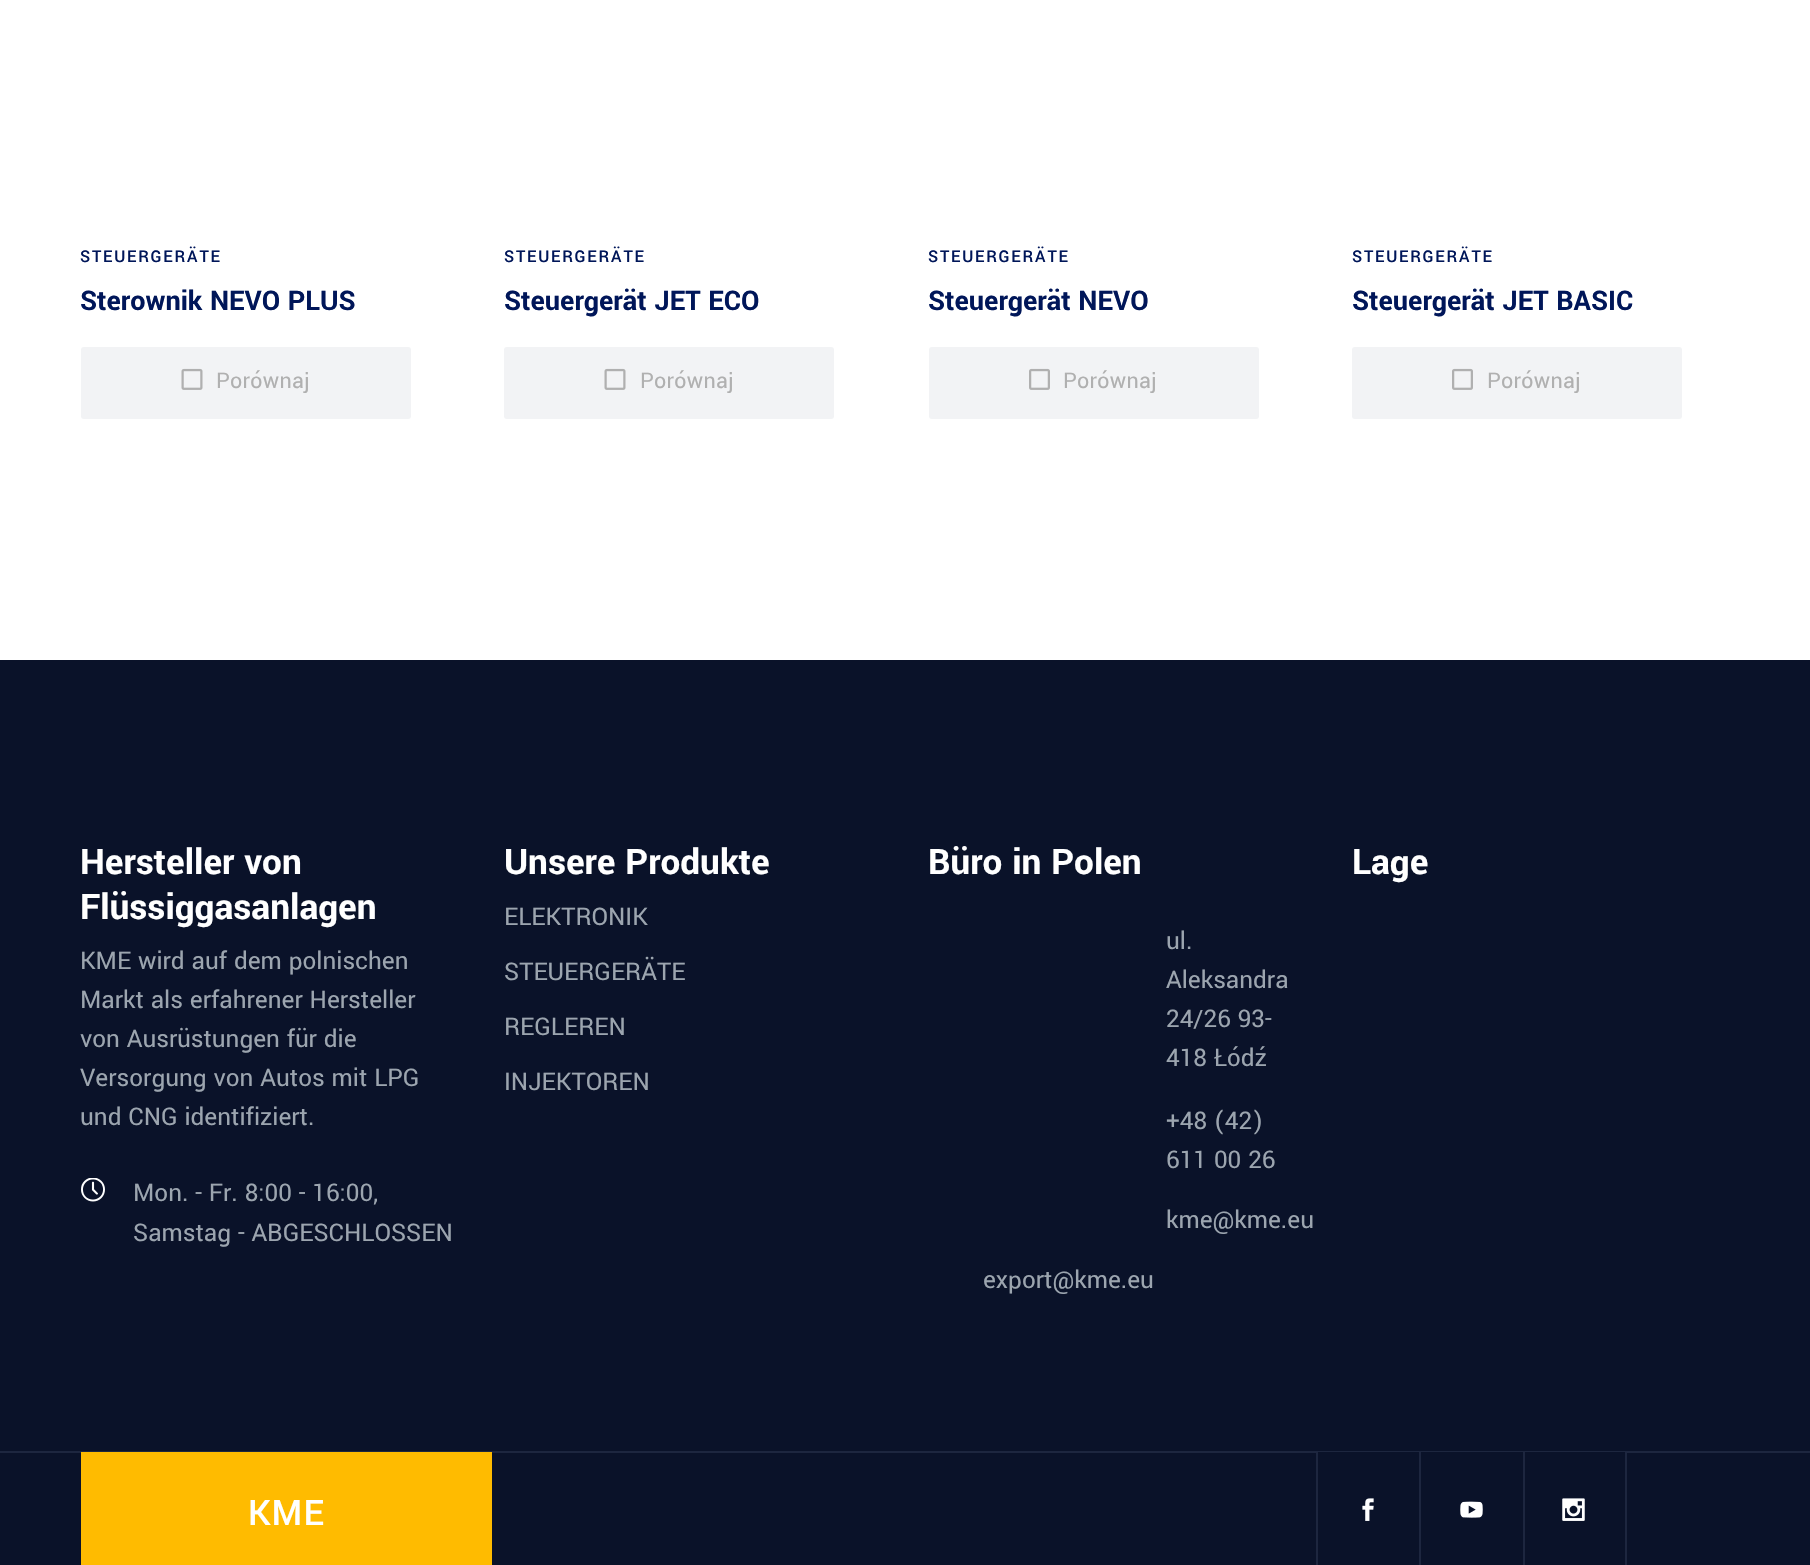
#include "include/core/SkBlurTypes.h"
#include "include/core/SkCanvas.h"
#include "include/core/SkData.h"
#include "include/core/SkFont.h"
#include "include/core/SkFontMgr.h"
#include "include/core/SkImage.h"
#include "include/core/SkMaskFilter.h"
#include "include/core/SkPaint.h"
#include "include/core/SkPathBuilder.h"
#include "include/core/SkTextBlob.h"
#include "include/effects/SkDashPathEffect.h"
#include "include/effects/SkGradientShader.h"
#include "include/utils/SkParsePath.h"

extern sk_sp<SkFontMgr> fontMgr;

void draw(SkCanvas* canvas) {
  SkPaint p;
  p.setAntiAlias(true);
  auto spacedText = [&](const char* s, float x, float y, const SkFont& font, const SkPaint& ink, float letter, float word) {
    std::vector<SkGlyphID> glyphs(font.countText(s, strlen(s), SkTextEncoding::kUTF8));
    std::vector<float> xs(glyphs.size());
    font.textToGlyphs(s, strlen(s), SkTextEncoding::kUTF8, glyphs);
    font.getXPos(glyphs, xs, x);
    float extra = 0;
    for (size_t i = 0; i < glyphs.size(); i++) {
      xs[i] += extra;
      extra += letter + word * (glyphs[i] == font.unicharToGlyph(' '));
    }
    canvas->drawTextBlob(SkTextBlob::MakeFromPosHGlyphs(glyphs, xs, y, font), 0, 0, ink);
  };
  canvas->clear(SK_ColorWHITE);
  p.setColor(SkColorSetRGB(242, 243, 245));
  canvas->drawRoundRect(SkRect::MakeLTRB(81, 347, 411, 419), 3, 3, p);
  canvas->drawImageRect(SkImages::DeferredFromEncodedData(SkData::MakeFromFileName("images/1.png")), SkRect::MakeLTRB(181, 368, 203, 390), SkSamplingOptions());
  canvas->drawRoundRect(SkRect::MakeLTRB(504, 347, 834, 419), 3, 3, p);
  canvas->drawImageRect(SkImages::DeferredFromEncodedData(SkData::MakeFromFileName("images/1.png")), SkRect::MakeLTRB(604, 368, 626, 390), SkSamplingOptions());
  canvas->drawRoundRect(SkRect::MakeLTRB(929, 347, 1259, 419), 3, 3, p);
  canvas->drawImageRect(SkImages::DeferredFromEncodedData(SkData::MakeFromFileName("images/2.png")), SkRect::MakeLTRB(1029, 368, 1050, 390), SkSamplingOptions());
  canvas->drawRoundRect(SkRect::MakeLTRB(1352, 347, 1682, 419), 3, 3, p);
  canvas->drawImageRect(SkImages::DeferredFromEncodedData(SkData::MakeFromFileName("images/2.png")), SkRect::MakeLTRB(1452, 368, 1473, 390), SkSamplingOptions());
  p.setColor(SkColorSetRGB(10, 18, 41));
  canvas->drawRect(SkRect::MakeLTRB(0, 660, 1810, 1451), p);
  canvas->drawImageRect(SkImages::DeferredFromEncodedData(SkData::MakeFromFileName("images/3.png")), SkRect::MakeLTRB(81, 1178, 105, 1202), SkSamplingOptions());
  canvas->drawRect(SkRect::MakeLTRB(0, 1453, 1810, 1565), p);
  p.setColor(SkColorSetRGB(29, 38, 63));
  canvas->drawRect(SkRect::MakeLTRB(0, 1451, 1810, 1453), p);
  p.setColor(SkColorSetRGB(255, 187, 0));
  canvas->drawRect(SkRect::MakeLTRB(81, 1452, 492, 1565), p);
  p.setColor(SkColorSetRGB(10, 18, 41));
  canvas->drawRect(SkRect::MakeLTRB(1318, 1452, 1419, 1453), p);
  p.setColor(SkColorSetRGB(29, 38, 63));
  canvas->drawRect(SkRect::MakeLTRB(1316, 1452, 1318, 1565), p);
  canvas->drawImageRect(SkImages::DeferredFromEncodedData(SkData::MakeFromFileName("images/4.png")), SkRect::MakeLTRB(1362, 1498, 1374, 1521), SkSamplingOptions());
  p.setColor(SkColorSetRGB(10, 18, 41));
  canvas->drawRect(SkRect::MakeLTRB(1421, 1452, 1523, 1453), p);
  p.setColor(SkColorSetRGB(29, 38, 63));
  canvas->drawRect(SkRect::MakeLTRB(1419, 1452, 1421, 1565), p);
  canvas->drawImageRect(SkImages::DeferredFromEncodedData(SkData::MakeFromFileName("images/5.png")), SkRect::MakeLTRB(1460, 1501, 1483, 1518), SkSamplingOptions());
  p.setColor(SkColorSetRGB(10, 18, 41));
  canvas->drawRect(SkRect::MakeLTRB(1525, 1452, 1625, 1453), p);
  p.setColor(SkColorSetRGB(29, 38, 63));
  canvas->drawRect(SkRect::MakeLTRB(1625, 1452, 1627, 1565), p);
  canvas->drawRect(SkRect::MakeLTRB(1523, 1452, 1525, 1565), p);
  canvas->drawImageRect(SkImages::DeferredFromEncodedData(SkData::MakeFromFileName("images/6.png")), SkRect::MakeLTRB(1562, 1498, 1585, 1521), SkSamplingOptions());
  SkFont font1(fontMgr->matchFamilyStyle("Yantramanav", SkFontStyle(500, SkFontStyle::kNormal_Width, SkFontStyle::kUpright_Slant)), 18);
  font1.setSubpixel(true);
  p.setColor(SkColorSetRGB(0, 22, 89));
  spacedText("STEUERGERÄTE", 80, 262, font1, p, 1.75f, 0);
  SkFont font2(fontMgr->matchFamilyStyle("Yantramanav", SkFontStyle::Bold()), 30);
  font2.setSubpixel(true);
  canvas->drawString("Sterownik NEVO PLUS", 80, 310, font2, p);
  SkFont font3(fontMgr->matchFamilyStyle("Yantramanav", SkFontStyle::Normal()), 24);
  font3.setSubpixel(true);
  p.setColor(SkColorSetRGB(176, 176, 176));
  spacedText("Porównaj", 216, 388, font3, p, 0.25f, 0);
  p.setColor(SkColorSetRGB(0, 22, 89));
  spacedText("STEUERGERÄTE", 504, 262, font1, p, 1.75f, 0);
  canvas->drawString("Steuergerät JET ECO", 504, 310, font2, p);
  p.setColor(SkColorSetRGB(176, 176, 176));
  spacedText("Porównaj", 640, 388, font3, p, 0.25f, 0);
  p.setColor(SkColorSetRGB(0, 22, 89));
  spacedText("STEUERGERÄTE", 928, 262, font1, p, 1.75f, 0);
  canvas->drawString("Steuergerät NEVO", 928, 310, font2, p);
  p.setColor(SkColorSetRGB(176, 176, 176));
  spacedText("Porównaj", 1063, 388, font3, p, 0.25f, 0);
  p.setColor(SkColorSetRGB(0, 22, 89));
  spacedText("STEUERGERÄTE", 1352, 262, font1, p, 1.75f, 0);
  canvas->drawString("Steuergerät JET BASIC", 1352, 310, font2, p);
  p.setColor(SkColorSetRGB(176, 176, 176));
  spacedText("Porównaj", 1487, 388, font3, p, 0.25f, 0);
  SkFont font4(fontMgr->matchFamilyStyle("Yantramanav", SkFontStyle::Bold()), 39);
  font4.setSubpixel(true);
  p.setColor(SK_ColorWHITE);
  canvas->drawString("Hersteller von", 80, 874, font4, p);
  canvas->drawString("Flüssiggasanlagen", 80, 919, font4, p);
  SkFont font5(fontMgr->matchFamilyStyle("Yantramanav", SkFontStyle::Normal()), 27);
  font5.setSubpixel(true);
  p.setColor(SkColorSetRGB(156, 165, 175));
  canvas->drawString("KME wird auf dem polnischen", 80, 969, font5, p);
  canvas->drawString("Markt als erfahrener Hersteller", 80, 1008, font5, p);
  canvas->drawString("von Ausrüstungen für die", 80, 1047, font5, p);
  canvas->drawString("Versorgung von Autos mit LPG", 80, 1086, font5, p);
  canvas->drawString("und CNG identifiziert.", 80, 1125, font5, p);
  canvas->drawString("Mon. - Fr. 8:00 - 16:00,", 133, 1201, font5, p);
  canvas->drawString("Samstag - ABGESCHLOSSEN", 133, 1241, font5, p);
  p.setColor(SK_ColorWHITE);
  canvas->drawString("Unsere Produkte", 504, 874, font4, p);
  p.setColor(SkColorSetRGB(156, 165, 175));
  canvas->drawString("ELEKTRONIK", 504, 925, font5, p);
  canvas->drawString("STEUERGERÄTE", 504, 980, font5, p);
  canvas->drawString("REGLEREN", 504, 1035, font5, p);
  canvas->drawString("INJEKTOREN", 504, 1090, font5, p);
  p.setColor(SK_ColorWHITE);
  canvas->drawString("Büro in Polen", 928, 874, font4, p);
  p.setColor(SkColorSetRGB(156, 165, 175));
  canvas->drawString("ul.", 1166, 949, font5, p);
  canvas->drawString("Aleksandra", 1166, 988, font5, p);
  canvas->drawString("24/26 93-", 1166, 1027, font5, p);
  canvas->drawString("418 Łódź", 1166, 1066, font5, p);
  canvas->drawString("+48 (42)", 1166, 1129, font5, p);
  canvas->drawString("611 00 26", 1166, 1168, font5, p);
  canvas->drawString("kme@kme.eu", 1166, 1228, font5, p);
  canvas->drawString("export@kme.eu", 983, 1288, font5, p);
  p.setColor(SK_ColorWHITE);
  canvas->drawString("Lage", 1352, 874, font4, p);
  SkFont font6(fontMgr->matchFamilyStyle("Yantramanav", SkFontStyle(500, SkFontStyle::kNormal_Width, SkFontStyle::kUpright_Slant)), 39);
  font6.setSubpixel(true);
  spacedText("KME", 248, 1525, font6, p, 1, 0);
}
